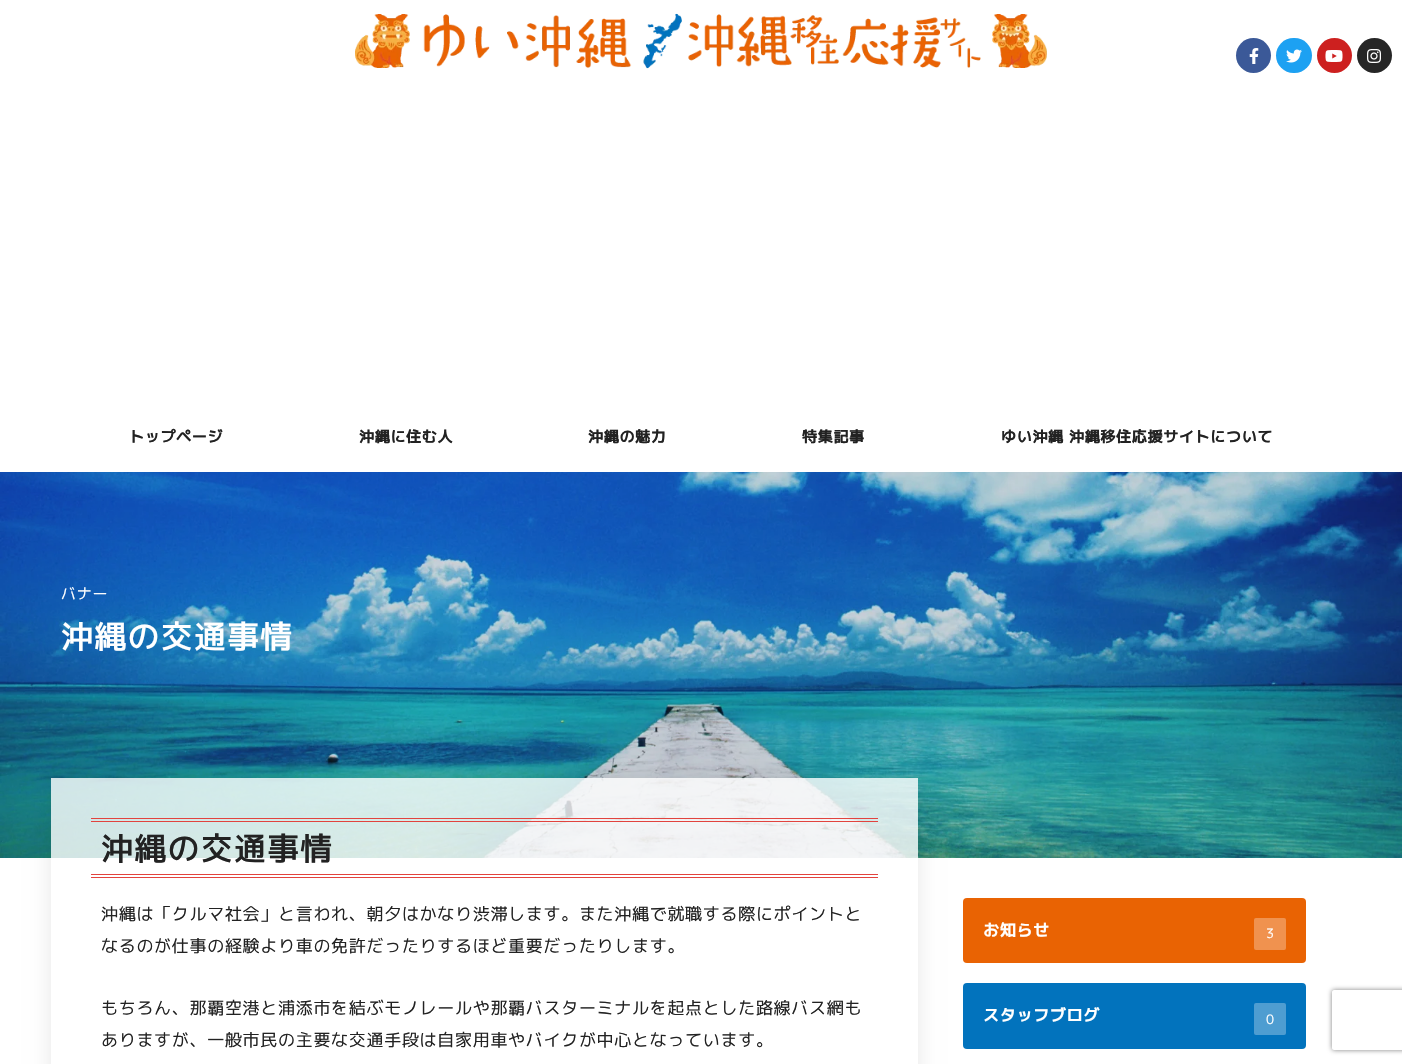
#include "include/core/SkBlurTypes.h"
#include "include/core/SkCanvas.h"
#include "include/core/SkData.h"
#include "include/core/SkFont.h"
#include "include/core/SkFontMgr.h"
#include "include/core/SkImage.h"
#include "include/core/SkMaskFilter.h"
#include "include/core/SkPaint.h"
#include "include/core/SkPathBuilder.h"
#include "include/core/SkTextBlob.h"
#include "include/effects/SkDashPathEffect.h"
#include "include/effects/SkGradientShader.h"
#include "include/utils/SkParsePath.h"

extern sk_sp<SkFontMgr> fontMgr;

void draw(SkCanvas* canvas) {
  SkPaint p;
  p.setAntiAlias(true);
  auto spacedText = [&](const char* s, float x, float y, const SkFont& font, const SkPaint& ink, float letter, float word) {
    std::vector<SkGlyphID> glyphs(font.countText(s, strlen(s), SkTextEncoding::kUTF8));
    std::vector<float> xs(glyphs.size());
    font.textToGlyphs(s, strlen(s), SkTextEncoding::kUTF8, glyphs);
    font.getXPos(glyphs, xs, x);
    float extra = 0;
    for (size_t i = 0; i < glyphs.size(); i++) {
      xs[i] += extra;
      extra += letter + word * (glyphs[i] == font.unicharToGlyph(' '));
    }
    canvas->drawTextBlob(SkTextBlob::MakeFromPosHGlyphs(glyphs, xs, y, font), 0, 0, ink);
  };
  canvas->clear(SK_ColorWHITE);
  canvas->drawImageRect(SkImages::DeferredFromEncodedData(SkData::MakeFromFileName("images/1.png")), SkRect::MakeLTRB(355, 13, 1047, 69), SkSamplingOptions());
  p.setColor(SkColorSetRGB(59, 89, 152));
  canvas->drawCircle(1253.5f, 55.5f, 17.5f, p);
  canvas->drawImageRect(SkImages::DeferredFromEncodedData(SkData::MakeFromFileName("images/2.png")), SkRect::MakeLTRB(1249, 48, 1259, 64), SkSamplingOptions());
  p.setColor(SkColorSetRGB(29, 161, 242));
  canvas->drawRoundRect(SkRect::MakeLTRB(1276, 38, 1312, 73), 17.5f, 17.5f, p);
  canvas->drawImageRect(SkImages::DeferredFromEncodedData(SkData::MakeFromFileName("images/3.png")), SkRect::MakeLTRB(1286, 49, 1302, 63), SkSamplingOptions());
  p.setColor(SkColorSetRGB(205, 32, 31));
  canvas->drawCircle(1334.5f, 55.5f, 17.5f, p);
  canvas->drawImageRect(SkImages::DeferredFromEncodedData(SkData::MakeFromFileName("images/4.png")), SkRect::MakeLTRB(1325, 50, 1343, 62), SkSamplingOptions());
  p.setColor(SkColorSetRGB(38, 38, 38));
  canvas->drawCircle(1374.5f, 55.5f, 17.5f, p);
  canvas->drawImageRect(SkImages::DeferredFromEncodedData(SkData::MakeFromFileName("images/5.png")), SkRect::MakeLTRB(1367, 49, 1381, 63), SkSamplingOptions());
  canvas->drawImageRect(SkImages::DeferredFromEncodedData(SkData::MakeFromFileName("images/6.png")), SkRect::MakeLTRB(0, 472, 1402, 858), SkSamplingOptions());
  canvas->save();
  canvas->clipPath(SkPathBuilder(SkPathFillType::kEvenOdd).moveTo(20, 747).lineTo(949, 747).lineTo(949, 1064).lineTo(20, 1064).close().moveTo(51, 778).lineTo(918, 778).lineTo(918, 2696).lineTo(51, 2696).close().detach(), true);
  p.setColor(SkColorSetARGB(23, 0, 0, 0));
  p.setMaskFilter(SkMaskFilter::MakeBlur(kNormal_SkBlurStyle, 10));
  canvas->drawRect(SkRect::MakeLTRB(51, 778, 918, 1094), p);
  p.setMaskFilter(nullptr);
  canvas->restore();
  p.setColor(SkColorSetARGB(204, 255, 255, 255));
  canvas->drawRect(SkRect::MakeLTRB(51, 778, 918, 858), p);
  p.setColor(SkColorSetRGB(226, 67, 62));
  canvas->drawRect(SkRect::MakeLTRB(91, 818, 878, 819), p);
  canvas->drawRect(SkRect::MakeLTRB(91, 821, 878, 822), p);
  canvas->drawRect(SkRect::MakeLTRB(91, 874, 878, 875), p);
  canvas->drawRect(SkRect::MakeLTRB(91, 877, 878, 878), p);
  p.setColor(SkColorSetRGB(233, 99, 3));
  canvas->drawRoundRect(SkRect::MakeLTRB(963, 898, 1306, 963), 4, 4, p);
  p.setColor(SkColorSetRGB(240, 146, 79));
  canvas->drawRoundRect(SkRect::MakeLTRB(1254, 918, 1286, 950), 2, 2, p);
  p.setColor(SkColorSetRGB(2, 115, 189));
  canvas->drawRoundRect(SkRect::MakeLTRB(963, 983, 1306, 1049), 4, 4, p);
  p.setColor(SkColorSetRGB(78, 157, 209));
  canvas->drawRoundRect(SkRect::MakeLTRB(1254, 1003, 1286, 1035), 2, 2, p);
  canvas->save();
  canvas->clipPath(SkPathBuilder(SkPathFillType::kEvenOdd).moveTo(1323, 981).lineTo(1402, 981).lineTo(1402, 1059).lineTo(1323, 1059).close().moveTo(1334, 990).lineTo(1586, 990).cubicTo(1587, 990, 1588, 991, 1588, 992).lineTo(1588, 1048).cubicTo(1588, 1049, 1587, 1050, 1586, 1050).lineTo(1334, 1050).cubicTo(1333, 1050, 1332, 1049, 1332, 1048).lineTo(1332, 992).cubicTo(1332, 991, 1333, 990, 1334, 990).close().detach(), true);
  p.setColor(SkColorSetRGB(128, 128, 128));
  p.setMaskFilter(SkMaskFilter::MakeBlur(kNormal_SkBlurStyle, 2.5f));
  canvas->drawRoundRect(SkRect::MakeLTRB(1332, 990, 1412, 1050), 2, 2, p);
  p.setMaskFilter(nullptr);
  canvas->restore();
  SkFont font1(fontMgr->matchFamilyStyle("M PLUS 1p", SkFontStyle::Bold()), 15);
  font1.setSubpixel(true);
  p.setColor(SkColorSetRGB(34, 34, 34));
  spacedText("トップページ", 129, 442, font1, p, 0.7f, 0);
  spacedText("沖縄に住む人", 359, 442, font1, p, 0.7f, 0);
  spacedText("沖縄の魅力", 588, 442, font1, p, 0.7f, 0);
  spacedText("特集記事", 802, 442, font1, p, 0.7f, 0);
  spacedText("ゆい沖縄 沖縄移住応援サイトについて", 1001, 442, font1, p, 0.7f, 0);
  SkFont font2(fontMgr->matchFamilyStyle("M PLUS 1p", SkFontStyle::Normal()), 15);
  font2.setSubpixel(true);
  p.setColor(SK_ColorWHITE);
  spacedText("バナー", 61, 599, font2, p, 0.7f, 0);
  SkFont font3(fontMgr->matchFamilyStyle("M PLUS 1p", SkFontStyle(500, SkFontStyle::kNormal_Width, SkFontStyle::kUpright_Slant)), 32);
  font3.setSubpixel(true);
  spacedText("沖縄の交通事情", 61, 648, font3, p, 1.25f, 0);
  p.setColor(SkColorSetRGB(34, 34, 34));
  spacedText("沖縄の交通事情", 101, 860, font3, p, 1.25f, 0);
  SkFont font4(fontMgr->matchFamilyStyle("M PLUS 1p", SkFontStyle::Normal()), 17);
  font4.setSubpixel(true);
  spacedText("沖縄は「クルマ社会」と言われ、朝夕はかなり渋滞します。また沖縄で就職する際にポイントと", 101, 920, font4, p, 0.7f, 0);
  spacedText("なるのが仕事の経験より車の免許だったりするほど重要だったりします。", 101, 952, font4, p, 0.7f, 0);
  spacedText("もちろん、那覇空港と浦添市を結ぶモノレールや那覇バスターミナルを起点とした路線バス網も", 101, 1014, font4, p, 0.7f, 0);
  spacedText("ありますが、一般市民の主要な交通手段は自家用車やバイクが中心となっています。", 101, 1046, font4, p, 0.7f, 0);
  SkFont font5(fontMgr->matchFamilyStyle("M PLUS 1p", SkFontStyle::Bold()), 16);
  font5.setSubpixel(true);
  p.setColor(SK_ColorWHITE);
  spacedText("お知らせ", 983, 936, font5, p, 0.7f, 0);
  SkFont font6(fontMgr->matchFamilyStyle("M PLUS 1p", SkFontStyle::Normal()), 13);
  font6.setSubpixel(true);
  spacedText("3", 1266, 938, font6, p, 0.7f, 0);
  spacedText("スタッフブログ", 983, 1021, font5, p, 0.7f, 0);
  spacedText("0", 1266, 1024, font6, p, 0.7f, 0);
}
